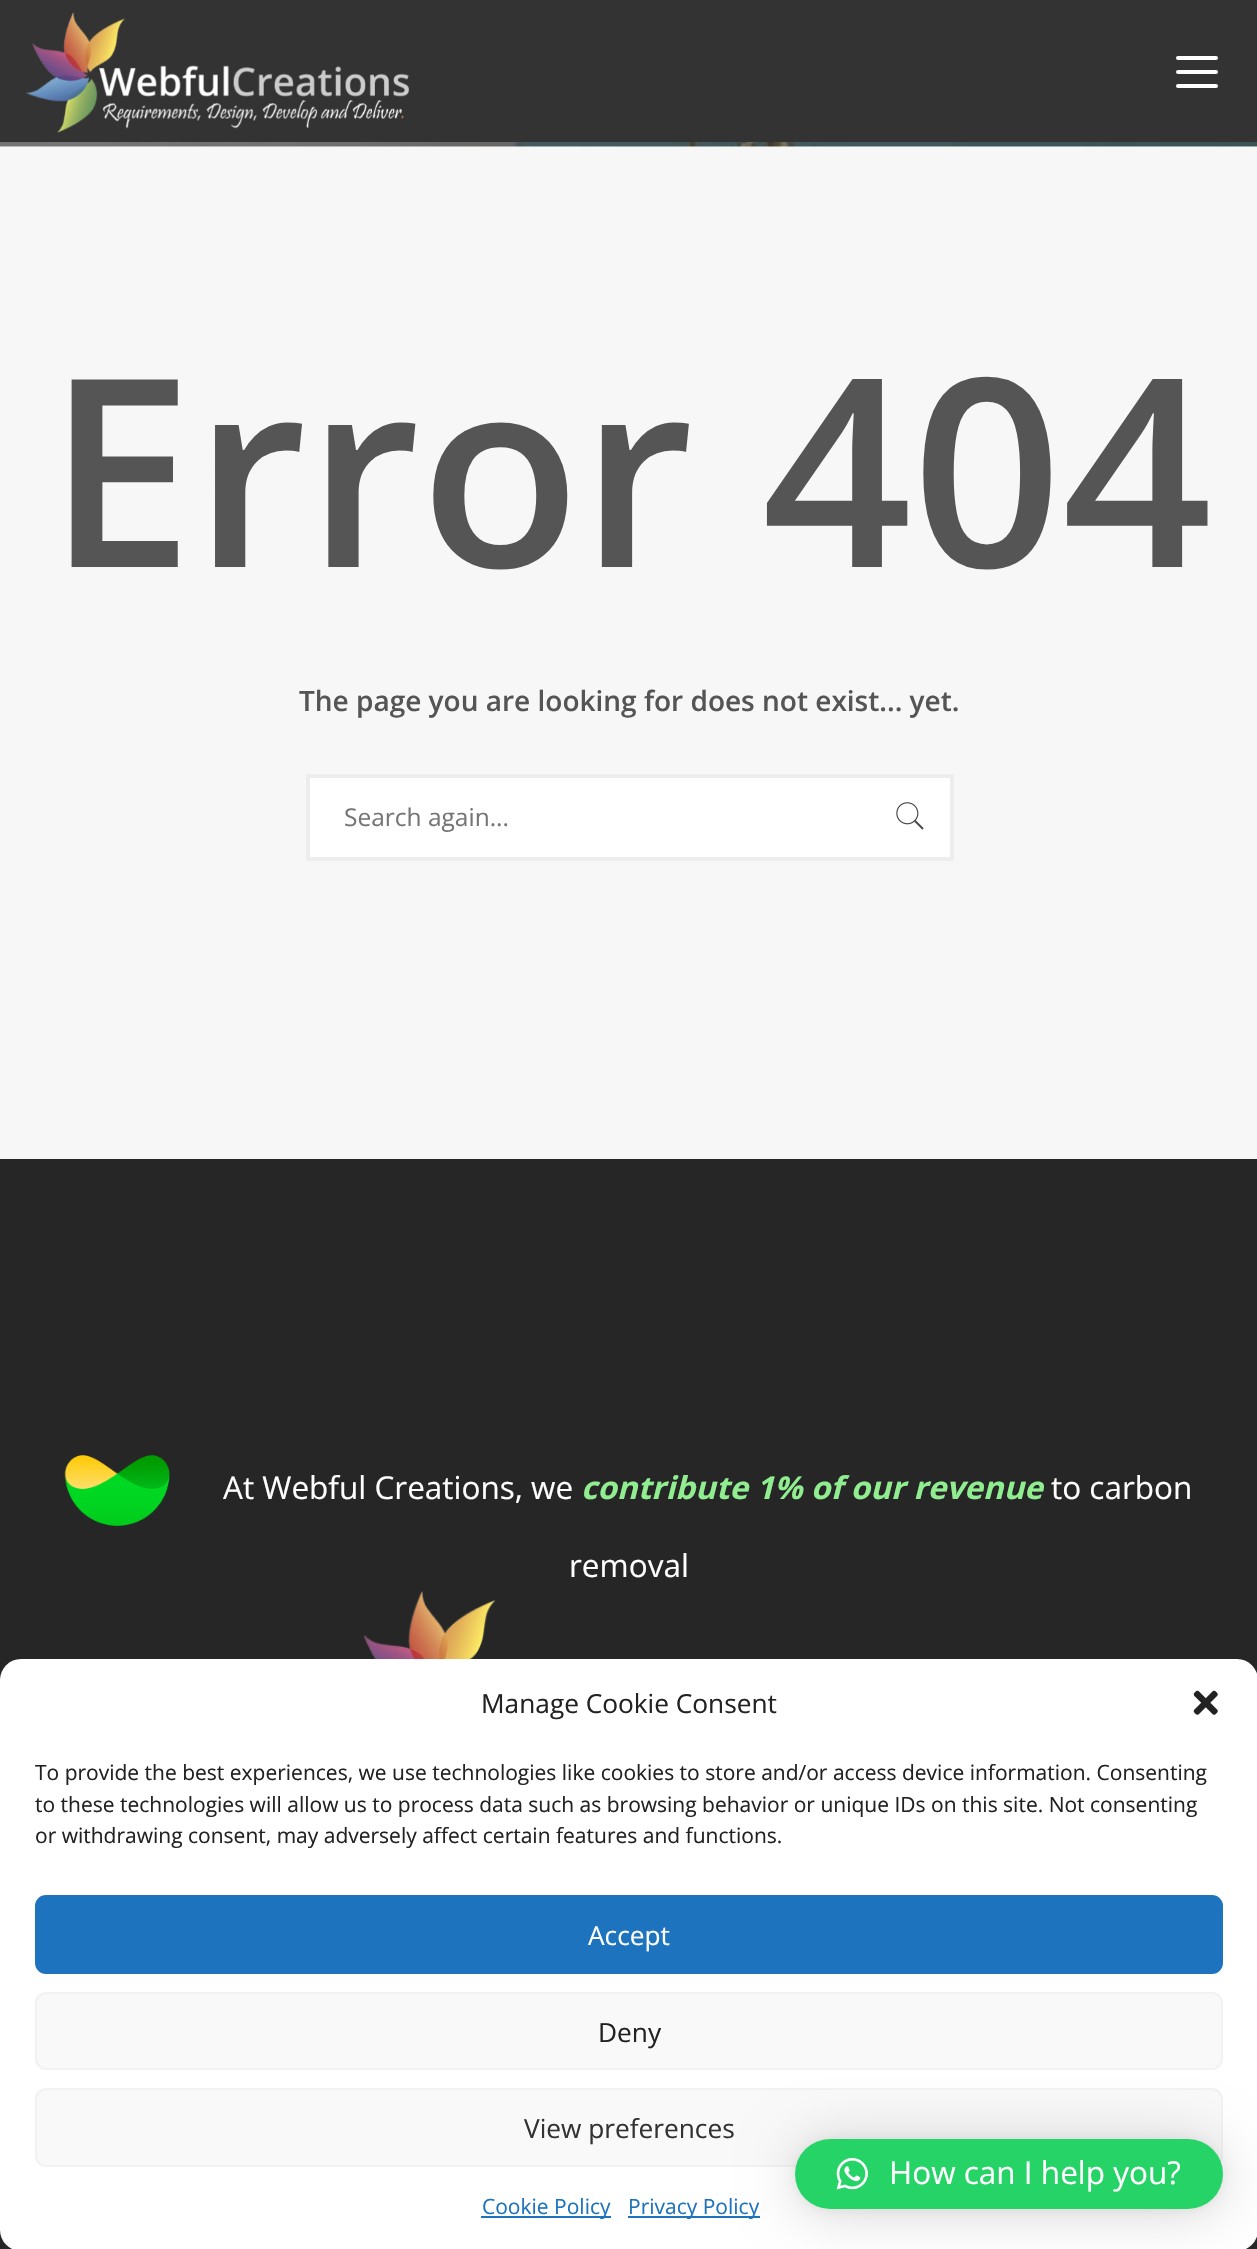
#include "include/core/SkBlurTypes.h"
#include "include/core/SkCanvas.h"
#include "include/core/SkData.h"
#include "include/core/SkFont.h"
#include "include/core/SkFontMgr.h"
#include "include/core/SkImage.h"
#include "include/core/SkMaskFilter.h"
#include "include/core/SkPaint.h"
#include "include/core/SkPathBuilder.h"
#include "include/core/SkTextBlob.h"
#include "include/effects/SkDashPathEffect.h"
#include "include/effects/SkGradientShader.h"
#include "include/utils/SkParsePath.h"

extern sk_sp<SkFontMgr> fontMgr;

void draw(SkCanvas* canvas) {
  SkPaint p;
  p.setAntiAlias(true);
  canvas->clear(SK_ColorWHITE);
  p.setColor(SkColorSetRGB(51, 51, 51));
  canvas->drawRect(SkRect::MakeLTRB(0, 0, 1257, 142), p);
  canvas->drawImageRect(SkImages::DeferredFromEncodedData(SkData::MakeFromFileName("images/1.png")), SkRect::MakeLTRB(26, 12, 409, 133), SkSamplingOptions());
  p.setColor(SK_ColorWHITE);
  canvas->drawRoundRect(SkRect::MakeLTRB(1176, 84, 1218, 88), 2, 2, p);
  canvas->drawRoundRect(SkRect::MakeLTRB(1176, 56, 1218, 60), 2, 2, p);
  canvas->drawRoundRect(SkRect::MakeLTRB(1176, 70, 1218, 74), 2, 2, p);
  canvas->drawImageRect(SkImages::DeferredFromEncodedData(SkData::MakeFromFileName("images/2.png")), SkRect::MakeLTRB(0, 142, 1257, 147), SkSamplingOptions());
  p.setColor(SkColorSetRGB(247, 247, 247));
  canvas->drawRect(SkRect::MakeLTRB(0, 147, 1257, 1159), p);
  p.setColor(SK_ColorWHITE);
  canvas->drawRect(SkRect::MakeLTRB(308, 776, 952, 859), p);
  p.setStyle(SkPaint::kStroke_Style);
  p.setStrokeWidth(4);
  p.setColor(SkColorSetRGB(237, 237, 237));
  canvas->drawRect(SkRect::MakeLTRB(308, 776, 952, 859), p);
  canvas->drawImageRect(SkImages::DeferredFromEncodedData(SkData::MakeFromFileName("images/3.png")), SkRect::MakeLTRB(896, 802, 924, 830), SkSamplingOptions());
  p.setStyle(SkPaint::kFill_Style);
  p.setColor(SkColorSetRGB(38, 38, 38));
  canvas->drawRect(SkRect::MakeLTRB(0, 1159, 1257, 2249), p);
  canvas->drawImageRect(SkImages::DeferredFromEncodedData(SkData::MakeFromFileName("images/4.png")), SkRect::MakeLTRB(64, 1455, 170, 1526), SkSamplingOptions());
  canvas->drawImageRect(SkImages::DeferredFromEncodedData(SkData::MakeFromFileName("images/5.png")), SkRect::MakeLTRB(363, 1591, 496, 1659), SkSamplingOptions());
  p.setColor(SK_ColorWHITE);
  canvas->drawRoundRect(SkRect::MakeLTRB(0, 1659, 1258, 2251), 21, 21, p);
  canvas->drawImageRect(SkImages::DeferredFromEncodedData(SkData::MakeFromFileName("images/6.png")), SkRect::MakeLTRB(1193, 1690, 1218, 1715), SkSamplingOptions());
  p.setColor(SkColorSetRGB(30, 115, 190));
  canvas->drawRoundRect(SkRect::MakeLTRB(36, 1896, 1222, 1973), 10, 10, p);
  p.setStyle(SkPaint::kStroke_Style);
  p.setStrokeWidth(2);
  canvas->drawRoundRect(SkRect::MakeLTRB(36, 1896, 1222, 1973), 10, 10, p);
  p.setStyle(SkPaint::kFill_Style);
  p.setColor(SkColorSetRGB(249, 249, 249));
  canvas->drawRoundRect(SkRect::MakeLTRB(36, 1993, 1222, 2069), 10, 10, p);
  p.setStyle(SkPaint::kStroke_Style);
  p.setColor(SkColorSetRGB(242, 242, 242));
  canvas->drawRoundRect(SkRect::MakeLTRB(36, 1993, 1222, 2069), 10, 10, p);
  p.setStyle(SkPaint::kFill_Style);
  p.setColor(SkColorSetRGB(249, 249, 249));
  canvas->drawRoundRect(SkRect::MakeLTRB(36, 2089, 1222, 2166), 10, 10, p);
  p.setStyle(SkPaint::kStroke_Style);
  p.setColor(SkColorSetRGB(242, 242, 242));
  canvas->drawRoundRect(SkRect::MakeLTRB(36, 2089, 1222, 2166), 10, 10, p);
  p.setStyle(SkPaint::kFill_Style);
  p.setColor(SkColorSetRGB(30, 115, 190));
  canvas->drawRect(SkRect::MakeLTRB(481, 2216, 611, 2218), p);
  canvas->drawRect(SkRect::MakeLTRB(628, 2216, 760, 2218), p);
  p.setColor(SkColorSetARGB(41, 0, 0, 0));
  p.setMaskFilter(SkMaskFilter::MakeBlur(kNormal_SkBlurStyle, 28));
  canvas->drawRoundRect(SkRect::MakeLTRB(795, 2142, 1223, 2212), 35, 35, p);
  p.setMaskFilter(nullptr);
  p.setColor(SkColorSetARGB(15, 0, 0, 0));
  p.setMaskFilter(SkMaskFilter::MakeBlur(kNormal_SkBlurStyle, 5));
  canvas->drawRoundRect(SkRect::MakeLTRB(795, 2140, 1223, 2210), 35, 35, p);
  p.setMaskFilter(nullptr);
  p.setColor(SkColorSetRGB(37, 211, 102));
  canvas->drawRoundRect(SkRect::MakeLTRB(795, 2139, 1223, 2209), 35, 35, p);
  canvas->drawImageRect(SkImages::DeferredFromEncodedData(SkData::MakeFromFileName("images/7.png")), SkRect::MakeLTRB(836, 2158, 868, 2190), SkSamplingOptions());
  SkFont font1(fontMgr->matchFamilyStyle("Open Sans", SkFontStyle(600, SkFontStyle::kNormal_Width, SkFontStyle::kUpright_Slant)), 262.5f);
  font1.setSubpixel(true);
  p.setColor(SkColorSetRGB(85, 85, 85));
  canvas->drawString("Error 404", 47, 567, font1, p);
  SkFont font2(fontMgr->matchFamilyStyle("Open Sans", SkFontStyle(600, SkFontStyle::kNormal_Width, SkFontStyle::kUpright_Slant)), 28);
  font2.setSubpixel(true);
  canvas->drawString("The page you are looking for does not exist... yet.", 299, 711, font2, p);
  SkFont font3(fontMgr->matchFamilyStyle("Open Sans", SkFontStyle::Normal()), 24.5f);
  font3.setSubpixel(true);
  p.setColor(SkColorSetRGB(117, 117, 117));
  canvas->drawString("Search again...", 344, 826, font3, p);
  SkFont font4(fontMgr->matchFamilyStyle("Open Sans", SkFontStyle::Normal()), 31.5f);
  font4.setSubpixel(true);
  p.setColor(SK_ColorWHITE);
  canvas->drawString("At Webful Creations, we", 223, 1499, font4, p);
  SkFont font5(fontMgr->matchFamilyStyle("Open Sans", SkFontStyle::BoldItalic()), 31.5f);
  font5.setSubpixel(true);
  p.setColor(SkColorSetRGB(144, 238, 144));
  canvas->drawString("contribute 1% of our revenue", 581, 1499, font5, p);
  p.setColor(SK_ColorWHITE);
  canvas->drawString("to carbon", 1051, 1499, font4, p);
  canvas->drawString("removal", 569, 1577, font4, p);
  SkFont font6(fontMgr->matchFamilyStyle("Open Sans", SkFontStyle::Normal()), 26.25f);
  font6.setSubpixel(true);
  p.setColor(SkColorSetRGB(34, 34, 34));
  canvas->drawString("Manage Cookie Consent", 481, 1713, font6, p);
  SkFont font7(fontMgr->matchFamilyStyle("Open Sans", SkFontStyle::Normal()), 21);
  font7.setSubpixel(true);
  canvas->drawString("To provide the best experiences, we use technologies like cookies to store and/or access device information. Consenting", 35, 1780, font7, p);
  canvas->drawString("to these technologies will allow us to process data such as browsing behavior or unique IDs on this site. Not consenting", 35, 1812, font7, p);
  canvas->drawString("or withdrawing consent, may adversely affect certain features and functions.", 35, 1843, font7, p);
  p.setColor(SK_ColorWHITE);
  canvas->drawString("Accept", 588, 1945, font6, p);
  p.setColor(SkColorSetRGB(34, 34, 34));
  canvas->drawString("Deny", 598, 2042, font6, p);
  p.setColor(SkColorSetRGB(51, 51, 51));
  canvas->drawString("View preferences", 524, 2138, font6, p);
  p.setColor(SkColorSetRGB(30, 115, 190));
  canvas->drawString("Cookie Policy", 482, 2214, font7, p);
  canvas->drawString("Privacy Policy", 628, 2214, font7, p);
  p.setColor(SK_ColorWHITE);
  canvas->drawString("How can I help you?", 889, 2184, font4, p);
}
